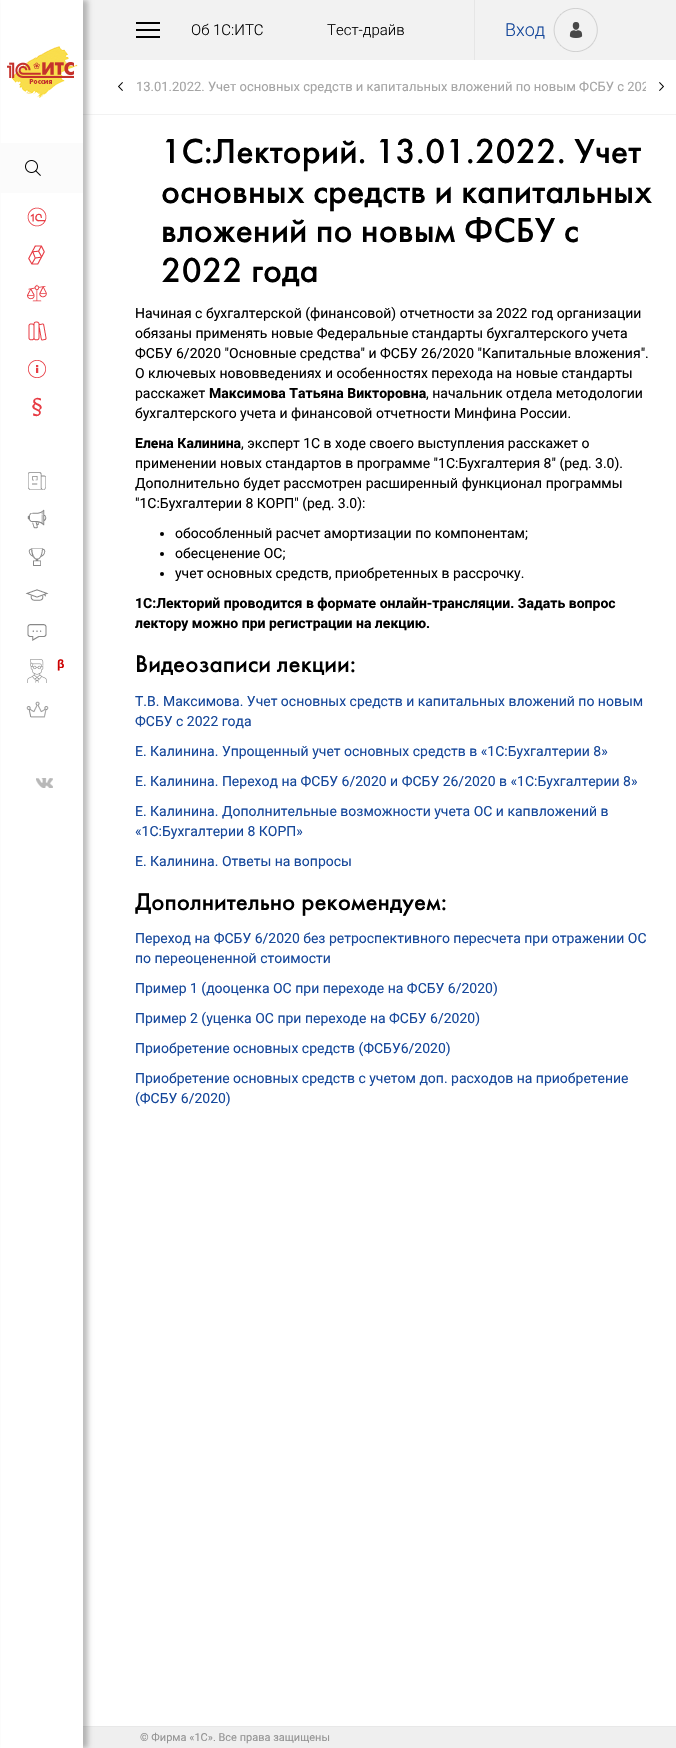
#include "include/core/SkBlurTypes.h"
#include "include/core/SkCanvas.h"
#include "include/core/SkData.h"
#include "include/core/SkFont.h"
#include "include/core/SkFontMgr.h"
#include "include/core/SkImage.h"
#include "include/core/SkMaskFilter.h"
#include "include/core/SkPaint.h"
#include "include/core/SkPathBuilder.h"
#include "include/core/SkTextBlob.h"
#include "include/effects/SkDashPathEffect.h"
#include "include/effects/SkGradientShader.h"
#include "include/utils/SkParsePath.h"

extern sk_sp<SkFontMgr> fontMgr;

void draw(SkCanvas* canvas) {
  SkPaint p;
  p.setAntiAlias(true);
  canvas->clear(SK_ColorWHITE);
  p.setColor(SkColorSetRGB(242, 242, 242));
  canvas->drawRect(SkRect::MakeLTRB(83, 0, 676, 60), p);
  canvas->drawImageRect(SkImages::DeferredFromEncodedData(SkData::MakeFromFileName("images/1.png")), SkRect::MakeLTRB(136, 22, 160, 38), SkSamplingOptions());
  p.setColor(SkColorSetRGB(230, 230, 230));
  canvas->drawRect(SkRect::MakeLTRB(474, 0, 475, 60), p);
  canvas->drawImageRect(SkImages::DeferredFromEncodedData(SkData::MakeFromFileName("images/2.png")), SkRect::MakeLTRB(553, 8, 598, 52), SkSamplingOptions());
  p.setColor(SkColorSetRGB(242, 242, 242));
  canvas->drawRect(SkRect::MakeLTRB(82, 114, 676, 115), p);
  canvas->drawImageRect(SkImages::DeferredFromEncodedData(SkData::MakeFromFileName("images/3.png")), SkRect::MakeLTRB(118, 82, 123, 91), SkSamplingOptions());
  canvas->drawImageRect(SkImages::DeferredFromEncodedData(SkData::MakeFromFileName("images/4.png")), SkRect::MakeLTRB(659, 82, 664, 91), SkSamplingOptions());
  p.setColor(SkColorSetRGB(239, 239, 239));
  canvas->drawRect(SkRect::MakeLTRB(83, 1727, 676, 1748), p);
  p.setColor(SkColorSetRGB(232, 232, 232));
  canvas->drawRect(SkRect::MakeLTRB(82, 1726, 676, 1727), p);
  p.setColor(SkColorSetARGB(64, 0, 0, 0));
  p.setMaskFilter(SkMaskFilter::MakeBlur(kNormal_SkBlurStyle, 2.5f));
  canvas->drawRect(SkRect::MakeLTRB(5, 0, 88, 1748), p);
  p.setMaskFilter(nullptr);
  p.setColor(SK_ColorWHITE);
  canvas->drawRect(SkRect::MakeLTRB(1, 0, 83, 1748), p);
  canvas->drawImageRect(SkImages::DeferredFromEncodedData(SkData::MakeFromFileName("images/5.png")), SkRect::MakeLTRB(7, 46, 78, 98), SkSamplingOptions());
  p.setColor(SkColorSetRGB(251, 251, 251));
  canvas->drawRect(SkRect::MakeLTRB(0, 143, 83, 193), p);
  canvas->drawImageRect(SkImages::DeferredFromEncodedData(SkData::MakeFromFileName("images/6.png")), SkRect::MakeLTRB(25, 160, 41, 176), SkSamplingOptions());
  canvas->drawImageRect(SkImages::DeferredFromEncodedData(SkData::MakeFromFileName("images/7.png")), SkRect::MakeLTRB(27, 207, 47, 227), SkSamplingOptions());
  canvas->drawImageRect(SkImages::DeferredFromEncodedData(SkData::MakeFromFileName("images/8.png")), SkRect::MakeLTRB(28, 245, 45, 265), SkSamplingOptions());
  canvas->drawImageRect(SkImages::DeferredFromEncodedData(SkData::MakeFromFileName("images/9.png")), SkRect::MakeLTRB(27, 284, 47, 302), SkSamplingOptions());
  canvas->drawImageRect(SkImages::DeferredFromEncodedData(SkData::MakeFromFileName("images/10.png")), SkRect::MakeLTRB(28, 321, 47, 341), SkSamplingOptions());
  canvas->drawImageRect(SkImages::DeferredFromEncodedData(SkData::MakeFromFileName("images/11.png")), SkRect::MakeLTRB(28, 360, 46, 378), SkSamplingOptions());
  canvas->drawImageRect(SkImages::DeferredFromEncodedData(SkData::MakeFromFileName("images/12.png")), SkRect::MakeLTRB(32, 397, 42, 417), SkSamplingOptions());
  canvas->drawImageRect(SkImages::DeferredFromEncodedData(SkData::MakeFromFileName("images/13.png")), SkRect::MakeLTRB(28, 472, 46, 490), SkSamplingOptions());
  canvas->drawImageRect(SkImages::DeferredFromEncodedData(SkData::MakeFromFileName("images/14.png")), SkRect::MakeLTRB(27, 509, 47, 529), SkSamplingOptions());
  canvas->drawImageRect(SkImages::DeferredFromEncodedData(SkData::MakeFromFileName("images/15.png")), SkRect::MakeLTRB(28, 548, 46, 566), SkSamplingOptions());
  canvas->drawImageRect(SkImages::DeferredFromEncodedData(SkData::MakeFromFileName("images/16.png")), SkRect::MakeLTRB(25, 589, 49, 601), SkSamplingOptions());
  canvas->drawImageRect(SkImages::DeferredFromEncodedData(SkData::MakeFromFileName("images/17.png")), SkRect::MakeLTRB(27, 624, 47, 641), SkSamplingOptions());
  canvas->drawImageRect(SkImages::DeferredFromEncodedData(SkData::MakeFromFileName("images/18.png")), SkRect::MakeLTRB(27, 659, 47, 683), SkSamplingOptions());
  canvas->drawImageRect(SkImages::DeferredFromEncodedData(SkData::MakeFromFileName("images/19.png")), SkRect::MakeLTRB(26, 701, 49, 718), SkSamplingOptions());
  canvas->drawImageRect(SkImages::DeferredFromEncodedData(SkData::MakeFromFileName("images/20.png")), SkRect::MakeLTRB(36, 778, 53, 788), SkSamplingOptions());
  p.setColor(SK_ColorBLACK);
  canvas->drawCircle(162, 534, 2, p);
  canvas->drawCircle(162, 554, 2, p);
  canvas->drawCircle(162, 574, 2, p);
  SkFont font1(fontMgr->matchFamilyStyle("Roboto", SkFontStyle(300, SkFontStyle::kNormal_Width, SkFontStyle::kUpright_Slant)), 15);
  font1.setSubpixel(true);
  canvas->drawString("Об 1С:ИТС", 191, 35, font1, p);
  canvas->drawString("Тест-драйв", 327, 35, font1, p);
  SkFont font2(fontMgr->matchFamilyStyle("Roboto", SkFontStyle(300, SkFontStyle::kNormal_Width, SkFontStyle::kUpright_Slant)), 18);
  font2.setSubpixel(true);
  p.setColor(SkColorSetRGB(22, 72, 155));
  canvas->drawString("Вход", 505, 36, font2, p);
  canvas->save();
  canvas->clipRect(SkRect::MakeLTRB(134, 60, 646, 113));
  SkFont font3(fontMgr->matchFamilyStyle("Roboto", SkFontStyle::Normal()), 13);
  font3.setSubpixel(true);
  p.setColor(SkColorSetRGB(164, 164, 164));
  canvas->drawString("13.01.2022. Учет основных средств и капитальных вложений по новым ФСБУ с 202", 136, 91, font3, p);
  canvas->restore();
  SkFont font4(fontMgr->matchFamilyStyle("Liberation Sans", SkFontStyle::Bold()), 12);
  font4.setSubpixel(true);
  p.setColor(SkColorSetRGB(204, 0, 0));
  canvas->drawString("β", 57, 668, font4, p);
  SkFont font5(fontMgr->matchFamilyStyle("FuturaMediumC", SkFontStyle(500, SkFontStyle::kNormal_Width, SkFontStyle::kUpright_Slant)), 36);
  font5.setSubpixel(true);
  p.setColor(SK_ColorBLACK);
  canvas->drawString("1С:Лекторий. 13.01.2022. Учет", 161, 163, font5, p);
  canvas->drawString("основных средств и капитальных", 161, 203, font5, p);
  canvas->drawString("вложений по новым ФСБУ с", 161, 242, font5, p);
  canvas->drawString("2022 года", 161, 282, font5, p);
  SkFont font6(fontMgr->matchFamilyStyle("Roboto", SkFontStyle::Normal()), 14);
  font6.setSubpixel(true);
  canvas->drawString("Начиная с бухгалтерской (финансовой) отчетности за 2022 год организации", 135, 318, font6, p);
  canvas->drawString("обязаны применять новые Федеральные стандарты бухгалтерского учета", 135, 338, font6, p);
  canvas->drawString("ФСБУ 6/2020 \"Основные средства\" и ФСБУ 26/2020 \"Капитальные вложения\".", 135, 358, font6, p);
  canvas->drawString("О ключевых нововведениях и особенностях перехода на новые стандарты", 135, 378, font6, p);
  canvas->drawString("расскажет", 135, 398, font6, p);
  SkFont font7(fontMgr->matchFamilyStyle("Roboto", SkFontStyle::Bold()), 14);
  font7.setSubpixel(true);
  canvas->drawString("Максимова Татьяна Викторовна", 209, 398, font7, p);
  canvas->drawString(", начальник отдела методологии", 426, 398, font6, p);
  canvas->drawString("бухгалтерского учета и финансовой отчетности Минфина России.", 135, 418, font6, p);
  canvas->drawString("Елена Калинина", 135, 448, font7, p);
  canvas->drawString(", эксперт 1С в ходе своего выступления расскажет о", 241, 448, font6, p);
  canvas->drawString("применении новых стандартов в программе \"1С:Бухгалтерия 8\" (ред. 3.0).", 135, 468, font6, p);
  canvas->drawString("Дополнительно будет рассмотрен расширенный функционал программы", 135, 488, font6, p);
  canvas->drawString("\"1С:Бухгалтерии 8 КОРП\" (ред. 3.0):", 135, 508, font6, p);
  canvas->drawString("обособленный расчет амортизации по компонентам;", 175, 538, font6, p);
  canvas->drawString("обесценение ОС;", 175, 558, font6, p);
  canvas->drawString("учет основных средств, приобретенных в рассрочку.", 175, 578, font6, p);
  canvas->drawString("1С:Лекторий проводится в формате онлайн-трансляции. Задать вопрос", 135, 608, font7, p);
  canvas->drawString("лектору можно при регистрации на лекцию.", 135, 628, font7, p);
  SkFont font8(fontMgr->matchFamilyStyle("FuturaMediumC", SkFontStyle(500, SkFontStyle::kNormal_Width, SkFontStyle::kUpright_Slant)), 25);
  font8.setSubpixel(true);
  canvas->drawString("Видеозаписи лекции:", 135, 672, font8, p);
  p.setColor(SkColorSetRGB(22, 72, 155));
  canvas->drawString("Т.В. Максимова. Учет основных средств и капитальных вложений по новым", 135, 706, font6, p);
  canvas->drawString("ФСБУ с 2022 года", 135, 726, font6, p);
  canvas->drawString("Е. Калинина. Упрощенный учет основных средств в «1С:Бухгалтерии 8»", 135, 756, font6, p);
  canvas->drawString("Е. Калинина. Переход на ФСБУ 6/2020 и ФСБУ 26/2020 в «1С:Бухгалтерии 8»", 135, 786, font6, p);
  canvas->drawString("Е. Калинина. Дополнительные возможности учета ОС и капвложений в", 135, 816, font6, p);
  canvas->drawString("«1С:Бухгалтерии 8 КОРП»", 135, 836, font6, p);
  canvas->drawString("Е. Калинина. Ответы на вопросы", 135, 866, font6, p);
  p.setColor(SK_ColorBLACK);
  canvas->drawString("Дополнительно рекомендуем:", 135, 910, font8, p);
  p.setColor(SkColorSetRGB(22, 72, 155));
  canvas->drawString("Переход на ФСБУ 6/2020 без ретроспективного пересчета при отражении ОС", 135, 943, font6, p);
  canvas->drawString("по переоцененной стоимости", 135, 963, font6, p);
  canvas->drawString("Пример 1 (дооценка ОС при переходе на ФСБУ 6/2020)", 135, 993, font6, p);
  canvas->drawString("Пример 2 (уценка ОС при переходе на ФСБУ 6/2020)", 135, 1023, font6, p);
  canvas->drawString("Приобретение основных средств (ФСБУ6/2020)", 135, 1053, font6, p);
  canvas->drawString("Приобретение основных средств с учетом доп. расходов на приобретение", 135, 1083, font6, p);
  canvas->drawString("(ФСБУ 6/2020)", 135, 1103, font6, p);
  SkFont font9(fontMgr->matchFamilyStyle("Roboto", SkFontStyle::Normal()), 11);
  font9.setSubpixel(true);
  p.setColor(SkColorSetRGB(147, 147, 147));
  canvas->drawString("© Фирма «1С». Все права защищены", 140, 1741, font9, p);
}
